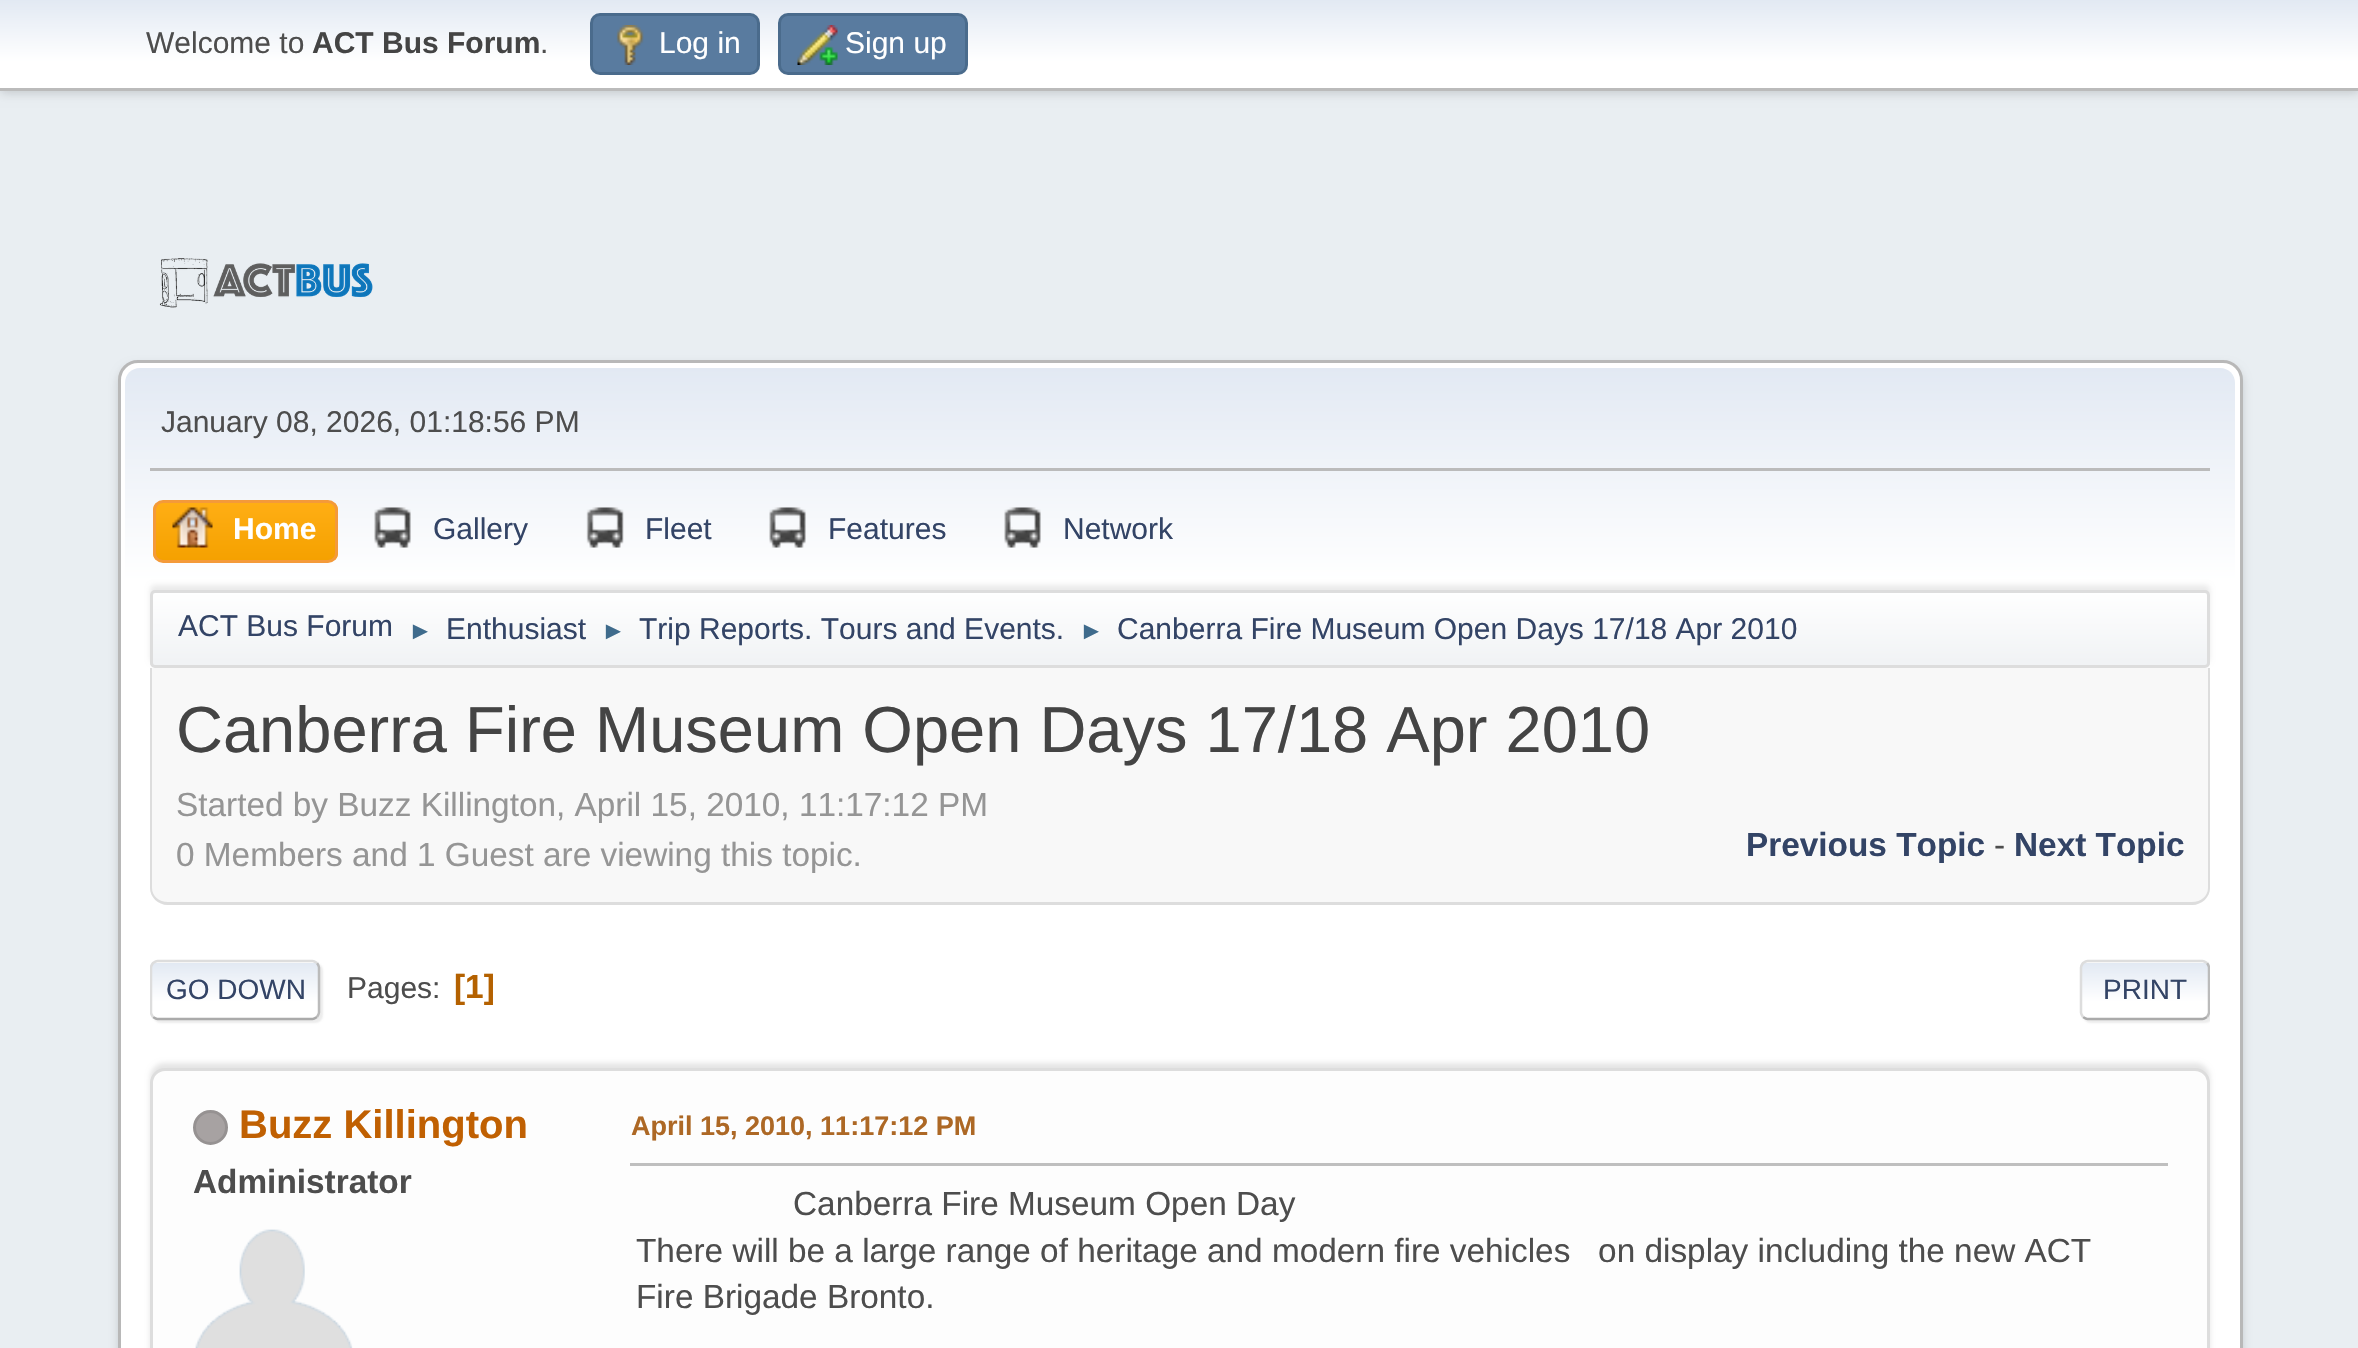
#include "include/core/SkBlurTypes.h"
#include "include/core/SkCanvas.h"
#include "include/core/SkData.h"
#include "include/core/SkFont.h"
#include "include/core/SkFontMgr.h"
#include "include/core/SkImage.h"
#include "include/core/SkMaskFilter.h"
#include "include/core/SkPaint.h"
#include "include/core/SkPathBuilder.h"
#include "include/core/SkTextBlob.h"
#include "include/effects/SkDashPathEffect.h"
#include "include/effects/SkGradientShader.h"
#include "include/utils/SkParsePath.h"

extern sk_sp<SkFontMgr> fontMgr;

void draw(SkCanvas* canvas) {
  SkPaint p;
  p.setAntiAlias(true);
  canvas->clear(SkColorSetRGB(233, 238, 242));
  p.setColor(SkColorSetARGB(41, 0, 0, 0));
  p.setMaskFilter(SkMaskFilter::MakeBlur(kNormal_SkBlurStyle, 5));
  canvas->drawRect(SkRect::MakeLTRB(0, 3, 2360, 93), p);
  p.setMaskFilter(nullptr);
  {
    const SkColor colors[] = {SkColorSetRGB(226, 233, 243), SK_ColorWHITE};
    const float stops[] = {0, 0.7f};
    const SkPoint ends[] = {{1180, 0}, {1180, 88}};
    p.setShader(SkGradientShader::MakeLinear(ends, colors, stops, 2, SkTileMode::kClamp));
    p.setAlpha(255);
  }
  canvas->drawRect(SkRect::MakeLTRB(0, 0, 2358, 88), p);
  p.setShader(nullptr);
  p.setColor(SkColorSetRGB(187, 187, 187));
  canvas->drawRect(SkRect::MakeLTRB(0, 88, 2358, 91), p);
  p.setColor(SkColorSetRGB(89, 123, 159));
  canvas->drawRoundRect(SkRect::MakeLTRB(591.5f, 14.5f, 758.5f, 73.5f), 8.5f, 8.5f, p);
  p.setStyle(SkPaint::kStroke_Style);
  p.setStrokeWidth(3);
  p.setColor(SkColorSetRGB(74, 107, 140));
  canvas->drawRoundRect(SkRect::MakeLTRB(591.5f, 14.5f, 758.5f, 73.5f), 8.5f, 8.5f, p);
  canvas->drawImageRect(SkImages::DeferredFromEncodedData(SkData::MakeFromFileName("images/1.png")), SkRect::MakeLTRB(616, 25, 644, 65), SkSamplingOptions());
  p.setStyle(SkPaint::kFill_Style);
  p.setColor(SkColorSetRGB(89, 123, 159));
  canvas->drawRoundRect(SkRect::MakeLTRB(779.5f, 14.5f, 966.5f, 73.5f), 8.5f, 8.5f, p);
  p.setStyle(SkPaint::kStroke_Style);
  p.setColor(SkColorSetRGB(74, 107, 140));
  canvas->drawRoundRect(SkRect::MakeLTRB(779.5f, 14.5f, 966.5f, 73.5f), 8.5f, 8.5f, p);
  canvas->drawImageRect(SkImages::DeferredFromEncodedData(SkData::MakeFromFileName("images/2.png")), SkRect::MakeLTRB(797, 25, 838, 65), SkSamplingOptions());
  canvas->drawImageRect(SkImages::DeferredFromEncodedData(SkData::MakeFromFileName("images/3.png")), SkRect::MakeLTRB(159, 258, 373, 308), SkSamplingOptions());
  p.setStyle(SkPaint::kFill_Style);
  p.setColor(SkColorSetARGB(36, 0, 0, 0));
  p.setMaskFilter(SkMaskFilter::MakeBlur(kNormal_SkBlurStyle, 4));
  canvas->drawRoundRect(SkRect::MakeLTRB(118, 365, 2243, 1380), 20, 20, p);
  p.setMaskFilter(nullptr);
  p.setColor(SK_ColorWHITE);
  canvas->drawRoundRect(SkRect::MakeLTRB(119.5f, 361.5f, 2241.5f, 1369.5f), 18.5f, 18.5f, p);
  p.setStyle(SkPaint::kStroke_Style);
  p.setColor(SkColorSetRGB(184, 184, 184));
  canvas->drawRoundRect(SkRect::MakeLTRB(119.5f, 361.5f, 2241.5f, 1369.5f), 18.5f, 18.5f, p);
  p.setStyle(SkPaint::kFill_Style);
  {
    const SkColor colors[] = {SkColorSetRGB(226, 233, 243), SK_ColorWHITE};
    const float stops[] = {0, 0.7f};
    const SkPoint ends[] = {{1180, 367}, {1180, 673}};
    p.setShader(SkGradientShader::MakeLinear(ends, colors, stops, 2, SkTileMode::kClamp));
    p.setAlpha(255);
  }
  canvas->drawPath(SkPathBuilder().moveTo(140, 368).lineTo(2220, 368).cubicTo(2228.5f, 368, 2235, 374.5f, 2235, 383).lineTo(2235, 673).lineTo(125, 673).lineTo(125, 383).cubicTo(125, 374.5f, 131.5f, 368, 140, 368).close().detach(), p);
  p.setShader(nullptr);
  p.setColor(SkColorSetRGB(187, 187, 187));
  canvas->drawRect(SkRect::MakeLTRB(150, 468, 2210, 471), p);
  canvas->save();
  canvas->clipPath(SkPathBuilder().moveTo(163, 500).lineTo(328, 500).cubicTo(333.5f, 500, 338, 504.5f, 338, 510).lineTo(338, 553).cubicTo(338, 558.5f, 333.5f, 563, 328, 563).lineTo(163, 563).cubicTo(157.5f, 563, 153, 558.5f, 153, 553).lineTo(153, 510).cubicTo(153, 504.5f, 157.5f, 500, 163, 500).close().detach(), true);
  {
    const SkColor colors[] = {SkColorSetRGB(255, 174, 20), SkColorSetRGB(245, 161, 0)};
    const float stops[] = {0, 1};
    const SkPoint ends[] = {{245, 503}, {245, 560}};
    p.setShader(SkGradientShader::MakeLinear(ends, colors, stops, 2, SkTileMode::kClamp));
    p.setAlpha(255);
  }
  canvas->drawRect(SkRect::MakeLTRB(153, 503, 338, 560), p);
  canvas->restore();
  p.setStyle(SkPaint::kStroke_Style);
  p.setShader(nullptr);
  p.setColor(SkColorSetRGB(244, 154, 58));
  canvas->drawRoundRect(SkRect::MakeLTRB(154.5f, 501.5f, 336.5f, 561.5f), 8.5f, 8.5f, p);
  canvas->drawImageRect(SkImages::DeferredFromEncodedData(SkData::MakeFromFileName("images/4.png")), SkRect::MakeLTRB(172, 507, 213, 548), SkSamplingOptions());
  canvas->drawImageRect(SkImages::DeferredFromEncodedData(SkData::MakeFromFileName("images/5.png")), SkRect::MakeLTRB(374, 507, 411, 548), SkSamplingOptions());
  canvas->drawImageRect(SkImages::DeferredFromEncodedData(SkData::MakeFromFileName("images/6.png")), SkRect::MakeLTRB(586, 507, 624, 548), SkSamplingOptions());
  canvas->drawImageRect(SkImages::DeferredFromEncodedData(SkData::MakeFromFileName("images/7.png")), SkRect::MakeLTRB(769, 507, 806, 548), SkSamplingOptions());
  canvas->drawImageRect(SkImages::DeferredFromEncodedData(SkData::MakeFromFileName("images/8.png")), SkRect::MakeLTRB(1004, 507, 1041, 548), SkSamplingOptions());
  p.setStyle(SkPaint::kFill_Style);
  p.setColor(SkColorSetARGB(20, 0, 0, 0));
  p.setMaskFilter(SkMaskFilter::MakeBlur(kNormal_SkBlurStyle, 2.5f));
  canvas->drawRoundRect(SkRect::MakeLTRB(150, 585, 2210, 663), 5, 5, p);
  p.setMaskFilter(nullptr);
  canvas->save();
  canvas->clipPath(SkPathBuilder().moveTo(155, 590).lineTo(2205, 590).cubicTo(2208, 590, 2210, 592, 2210, 595).lineTo(2210, 663).cubicTo(2210, 666, 2208, 668, 2205, 668).lineTo(155, 668).cubicTo(152, 668, 150, 666, 150, 663).lineTo(150, 595).cubicTo(150, 592, 152, 590, 155, 590).close().detach(), true);
  {
    const SkColor colors[] = {SK_ColorWHITE, SkColorSetRGB(241, 243, 245)};
    const float stops[] = {0, 0.95f};
    const SkPoint ends[] = {{1180, 592}, {1180, 665}};
    p.setShader(SkGradientShader::MakeLinear(ends, colors, stops, 2, SkTileMode::kClamp));
    p.setAlpha(255);
  }
  canvas->drawRect(SkRect::MakeLTRB(150, 593, 2210, 665), p);
  canvas->restore();
  p.setStyle(SkPaint::kStroke_Style);
  p.setShader(nullptr);
  p.setColor(SkColorSetRGB(221, 221, 221));
  canvas->drawRoundRect(SkRect::MakeLTRB(151.5f, 591.5f, 2208.5f, 666.5f), 3.5f, 3.5f, p);
  p.setStyle(SkPaint::kFill_Style);
  p.setColor(SkColorSetRGB(248, 248, 248));
  canvas->drawPath(SkPathBuilder().moveTo(150, 668).lineTo(2210, 668).lineTo(2210, 887).cubicTo(2210, 897, 2202, 905, 2192, 905).lineTo(168, 905).cubicTo(158, 905, 150, 897, 150, 887).close().detach(), p);
  p.setColor(SkColorSetRGB(221, 221, 221));
  canvas->drawPath(SkPathBuilder(SkPathFillType::kEvenOdd).moveTo(150, 668).lineTo(2210, 668).lineTo(2210, 888).cubicTo(2210, 897, 2202, 905, 2192, 905).lineTo(168, 905).cubicTo(158, 905, 150, 897, 150, 888).close().moveTo(152, 668).lineTo(2208, 668).lineTo(2208, 888).cubicTo(2208, 896, 2201, 902, 2192, 902).lineTo(168, 902).cubicTo(159, 902, 152, 896, 152, 888).close().detach(), p);
  p.setColor(SkColorSetARGB(145, 221, 221, 221));
  p.setMaskFilter(SkMaskFilter::MakeBlur(kNormal_SkBlurStyle, 1));
  canvas->drawRoundRect(SkRect::MakeLTRB(153, 963, 323, 1023), 8, 8, p);
  p.setMaskFilter(nullptr);
  p.setColor(SK_ColorWHITE);
  canvas->drawRoundRect(SkRect::MakeLTRB(150, 960, 320, 1020), 8, 8, p);
  canvas->save();
  canvas->clipPath(SkPathBuilder().moveTo(158, 960).lineTo(312, 960).cubicTo(316.5f, 960, 320, 963.5f, 320, 968).lineTo(320, 1012).cubicTo(320, 1016.5f, 316.5f, 1020, 312, 1020).lineTo(158, 1020).cubicTo(153.5f, 1020, 150, 1016.5f, 150, 1012).lineTo(150, 968).cubicTo(150, 963.5f, 153.5f, 960, 158, 960).close().detach(), true);
  {
    const SkColor colors[] = {SkColorSetRGB(226, 233, 243), SK_ColorWHITE};
    const float stops[] = {0, 0.7f};
    const SkPoint ends[] = {{235, 963}, {235, 1018}};
    p.setShader(SkGradientShader::MakeLinear(ends, colors, stops, 2, SkTileMode::kClamp));
    p.setAlpha(255);
  }
  canvas->drawRect(SkRect::MakeLTRB(150, 963, 320, 1018), p);
  canvas->restore();
  p.setStyle(SkPaint::kStroke_Style);
  p.setStrokeWidth(2.5f);
  p.setShader(nullptr);
  p.setColor(SkColorSetRGB(187, 187, 187));
  canvas->drawPath(SkPathBuilder().moveTo(317, 963).cubicTo(318, 964.5f, 319, 966, 319, 967.5f).lineTo(319, 1012.5f).cubicTo(319, 1014, 318, 1015.5f, 317, 1017).detach(), p);
  p.setColor(SkColorSetRGB(170, 170, 170));
  canvas->drawPath(SkPathBuilder().moveTo(317, 1017).cubicTo(315.5f, 1018, 314, 1019, 312.5f, 1019).lineTo(157.5f, 1019).cubicTo(156, 1019, 154.5f, 1018, 153, 1017).detach(), p);
  canvas->save();
  canvas->clipRect(SkRect::MakeLTRB(150, 943, 2210, 1038));
  p.setColor(SkColorSetRGB(221, 221, 221));
  canvas->drawPath(SkPathBuilder().moveTo(153, 1017).cubicTo(152, 1015.5f, 151, 1014, 151, 1012.5f).lineTo(151, 967.5f).cubicTo(151, 966, 152, 964.5f, 153, 963).cubicTo(154.5f, 962, 156, 961, 157.5f, 961).lineTo(312.5f, 961).cubicTo(314, 961, 315.5f, 962, 317, 963).detach(), p);
  canvas->restore();
  canvas->save();
  canvas->clipRect(SkRect::MakeLTRB(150, 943, 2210, 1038));
  p.setStyle(SkPaint::kFill_Style);
  p.setColor(SkColorSetARGB(145, 221, 221, 221));
  p.setMaskFilter(SkMaskFilter::MakeBlur(kNormal_SkBlurStyle, 1));
  canvas->drawRoundRect(SkRect::MakeLTRB(2083, 963, 2213, 1023), 8, 8, p);
  p.setMaskFilter(nullptr);
  canvas->restore();
  p.setColor(SK_ColorWHITE);
  canvas->drawRoundRect(SkRect::MakeLTRB(2080, 960, 2210, 1020), 8, 8, p);
  canvas->save();
  canvas->clipPath(SkPathBuilder().moveTo(2088, 960).lineTo(2202, 960).cubicTo(2206.5f, 960, 2210, 963.5f, 2210, 968).lineTo(2210, 1012).cubicTo(2210, 1016.5f, 2206.5f, 1020, 2202, 1020).lineTo(2088, 1020).cubicTo(2083.5f, 1020, 2080, 1016.5f, 2080, 1012).lineTo(2080, 968).cubicTo(2080, 963.5f, 2083.5f, 960, 2088, 960).close().detach(), true);
  {
    const SkColor colors[] = {SkColorSetRGB(226, 233, 243), SK_ColorWHITE};
    const float stops[] = {0, 0.7f};
    const SkPoint ends[] = {{2145, 963}, {2145, 1018}};
    p.setShader(SkGradientShader::MakeLinear(ends, colors, stops, 2, SkTileMode::kClamp));
    p.setAlpha(255);
  }
  canvas->drawRect(SkRect::MakeLTRB(2080, 963, 2210, 1018), p);
  canvas->restore();
  canvas->save();
  canvas->clipRect(SkRect::MakeLTRB(150, 943, 2210, 1038));
  p.setStyle(SkPaint::kStroke_Style);
  p.setShader(nullptr);
  p.setColor(SkColorSetRGB(187, 187, 187));
  canvas->drawPath(SkPathBuilder().moveTo(2207, 963).cubicTo(2208, 964.5f, 2209, 966, 2209, 967.5f).lineTo(2209, 1012.5f).cubicTo(2209, 1014, 2208, 1015.5f, 2207, 1017).detach(), p);
  canvas->restore();
  p.setColor(SkColorSetRGB(170, 170, 170));
  canvas->drawPath(SkPathBuilder().moveTo(2207, 1017).cubicTo(2205.5f, 1018, 2204, 1019, 2202.5f, 1019).lineTo(2087.5f, 1019).cubicTo(2086, 1019, 2084.5f, 1018, 2083, 1017).detach(), p);
  p.setColor(SkColorSetRGB(221, 221, 221));
  canvas->drawPath(SkPathBuilder().moveTo(2083, 1017).cubicTo(2082, 1015.5f, 2081, 1014, 2081, 1012.5f).lineTo(2081, 967.5f).cubicTo(2081, 966, 2082, 964.5f, 2083, 963).cubicTo(2084.5f, 962, 2086, 961, 2087.5f, 961).lineTo(2202.5f, 961).cubicTo(2204, 961, 2205.5f, 962, 2207, 963).detach(), p);
  p.setStyle(SkPaint::kFill_Style);
  p.setColor(SkColorSetARGB(26, 0, 0, 0));
  p.setMaskFilter(SkMaskFilter::MakeBlur(kNormal_SkBlurStyle, 2.5f));
  canvas->drawRoundRect(SkRect::MakeLTRB(150, 1063, 2210, 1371), 15, 15, p);
  p.setMaskFilter(nullptr);
  p.setColor(SkColorSetRGB(253, 253, 253));
  canvas->drawRoundRect(SkRect::MakeLTRB(151.5f, 1069.5f, 2208.5f, 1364.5f), 13.5f, 13.5f, p);
  p.setStyle(SkPaint::kStroke_Style);
  p.setStrokeWidth(3);
  p.setColor(SkColorSetRGB(221, 221, 221));
  canvas->drawRoundRect(SkRect::MakeLTRB(151.5f, 1069.5f, 2208.5f, 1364.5f), 13.5f, 13.5f, p);
  p.setStyle(SkPaint::kFill_Style);
  p.setColor(SkColorSetRGB(167, 162, 162));
  canvas->drawCircle(210.5f, 1127.5f, 16, p);
  p.setStyle(SkPaint::kStroke_Style);
  p.setColor(SkColorSetRGB(150, 146, 146));
  canvas->drawCircle(210.5f, 1127.5f, 16, p);
  canvas->drawImageRect(SkImages::DeferredFromEncodedData(SkData::MakeFromFileName("images/9.png")), SkRect::MakeLTRB(195, 1229, 353, 1348), SkSamplingOptions());
  p.setStyle(SkPaint::kFill_Style);
  p.setColor(SkColorSetRGB(191, 191, 191));
  canvas->drawRect(SkRect::MakeLTRB(630, 1163, 2168, 1166), p);
  SkFont font1(fontMgr->matchFamilyStyle("Liberation Sans", SkFontStyle::Normal()), 30);
  font1.setSubpixel(true);
  p.setColor(SkColorSetRGB(77, 77, 77));
  canvas->drawString("Welcome to", 146, 53, font1, p);
  SkFont font2(fontMgr->matchFamilyStyle("Liberation Sans", SkFontStyle::Bold()), 30);
  font2.setSubpixel(true);
  p.setColor(SkColorSetRGB(68, 68, 68));
  canvas->drawString("ACT Bus Forum", 312, 53, font2, p);
  p.setColor(SkColorSetRGB(77, 77, 77));
  canvas->drawString(".", 540, 53, font1, p);
  p.setColor(SK_ColorWHITE);
  canvas->drawString("Log in", 659, 53, font1, p);
  canvas->drawString("Sign up", 845, 53, font1, p);
  p.setColor(SkColorSetRGB(77, 77, 77));
  canvas->drawString("January 08, 2026, 01:18:56 PM", 161, 432, font1, p);
  p.setColor(SK_ColorWHITE);
  canvas->drawString("Home", 233, 539, font2, p);
  p.setColor(SkColorSetRGB(51, 68, 102));
  canvas->drawString("Gallery", 433, 539, font1, p);
  canvas->drawString("Fleet", 645, 539, font1, p);
  canvas->drawString("Features", 828, 539, font1, p);
  canvas->drawString("Network", 1063, 539, font1, p);
  canvas->drawString("ACT Bus Forum", 178, 636, font1, p);
  SkFont font3(fontMgr->matchFamilyStyle("Liberation Sans", SkFontStyle::Normal()), 25);
  font3.setSubpixel(true);
  p.setColor(SkColorSetRGB(63, 107, 140));
  canvas->drawString("►", 408, 639, font3, p);
  p.setColor(SkColorSetRGB(51, 68, 102));
  canvas->drawString("Enthusiast", 446, 639, font1, p);
  p.setColor(SkColorSetRGB(63, 107, 140));
  canvas->drawString("►", 601, 639, font3, p);
  p.setColor(SkColorSetRGB(51, 68, 102));
  canvas->drawString("Trip Reports. Tours and Events.", 639, 639, font1, p);
  p.setColor(SkColorSetRGB(63, 107, 140));
  canvas->drawString("►", 1079, 639, font3, p);
  p.setColor(SkColorSetRGB(51, 68, 102));
  canvas->drawString("Canberra Fire Museum Open Days 17/18 Apr 2010", 1117, 639, font1, p);
  SkFont font4(fontMgr->matchFamilyStyle("Liberation Sans", SkFontStyle::Normal()), 65);
  font4.setSubpixel(true);
  p.setColor(SkColorSetRGB(68, 68, 68));
  canvas->drawString("Canberra Fire Museum Open Days 17/18 Apr 2010", 176, 752, font4, p);
  SkFont font5(fontMgr->matchFamilyStyle("Liberation Sans", SkFontStyle::Normal()), 33.35f);
  font5.setSubpixel(true);
  p.setColor(SkColorSetRGB(149, 149, 149));
  canvas->drawString("Started by Buzz Killington, April 15, 2010, 11:17:12 PM", 176, 816, font5, p);
  canvas->drawString("0 Members and 1 Guest are viewing this topic.", 176, 866, font5, p);
  SkFont font6(fontMgr->matchFamilyStyle("Liberation Sans", SkFontStyle::Bold()), 33.35f);
  font6.setSubpixel(true);
  p.setColor(SkColorSetRGB(51, 68, 102));
  canvas->drawString("Previous Topic", 1746, 856, font6, p);
  p.setColor(SkColorSetRGB(77, 77, 77));
  canvas->drawString("-", 1994, 856, font5, p);
  p.setColor(SkColorSetRGB(51, 68, 102));
  canvas->drawString("Next Topic", 2014, 856, font6, p);
  SkFont font7(fontMgr->matchFamilyStyle("Liberation Sans", SkFontStyle::Normal()), 28);
  font7.setSubpixel(true);
  canvas->drawString("GO DOWN", 166, 999, font7, p);
  p.setColor(SkColorSetRGB(77, 77, 77));
  canvas->drawString("Pages:", 347, 998, font1, p);
  p.setColor(SkColorSetRGB(180, 97, 0));
  canvas->drawString("[1]", 454, 998, font6, p);
  p.setColor(SkColorSetRGB(51, 68, 102));
  canvas->drawString("PRINT", 2103, 999, font7, p);
  SkFont font8(fontMgr->matchFamilyStyle("Liberation Sans", SkFontStyle::Bold()), 40);
  font8.setSubpixel(true);
  p.setColor(SkColorSetRGB(192, 96, 2));
  canvas->drawString("Buzz Killington", 239, 1138, font8, p);
  p.setColor(SkColorSetRGB(77, 77, 77));
  canvas->drawString("Administrator", 193, 1193, font6, p);
  SkFont font9(fontMgr->matchFamilyStyle("Liberation Sans", SkFontStyle::Bold()), 27);
  font9.setSubpixel(true);
  p.setColor(SkColorSetRGB(173, 104, 37));
  canvas->drawString("April 15, 2010, 11:17:12 PM", 631, 1135, font9, p);
  p.setColor(SkColorSetRGB(77, 77, 77));
  canvas->drawString("Canberra Fire Museum Open Day", 793, 1215, font5, p);
  canvas->drawString("There will be a large range of heritage and modern fire vehicles   on display including the new ACT", 636, 1262, font5, p);
  canvas->drawString("Fire Brigade Bronto.", 636, 1308, font5, p);
}
